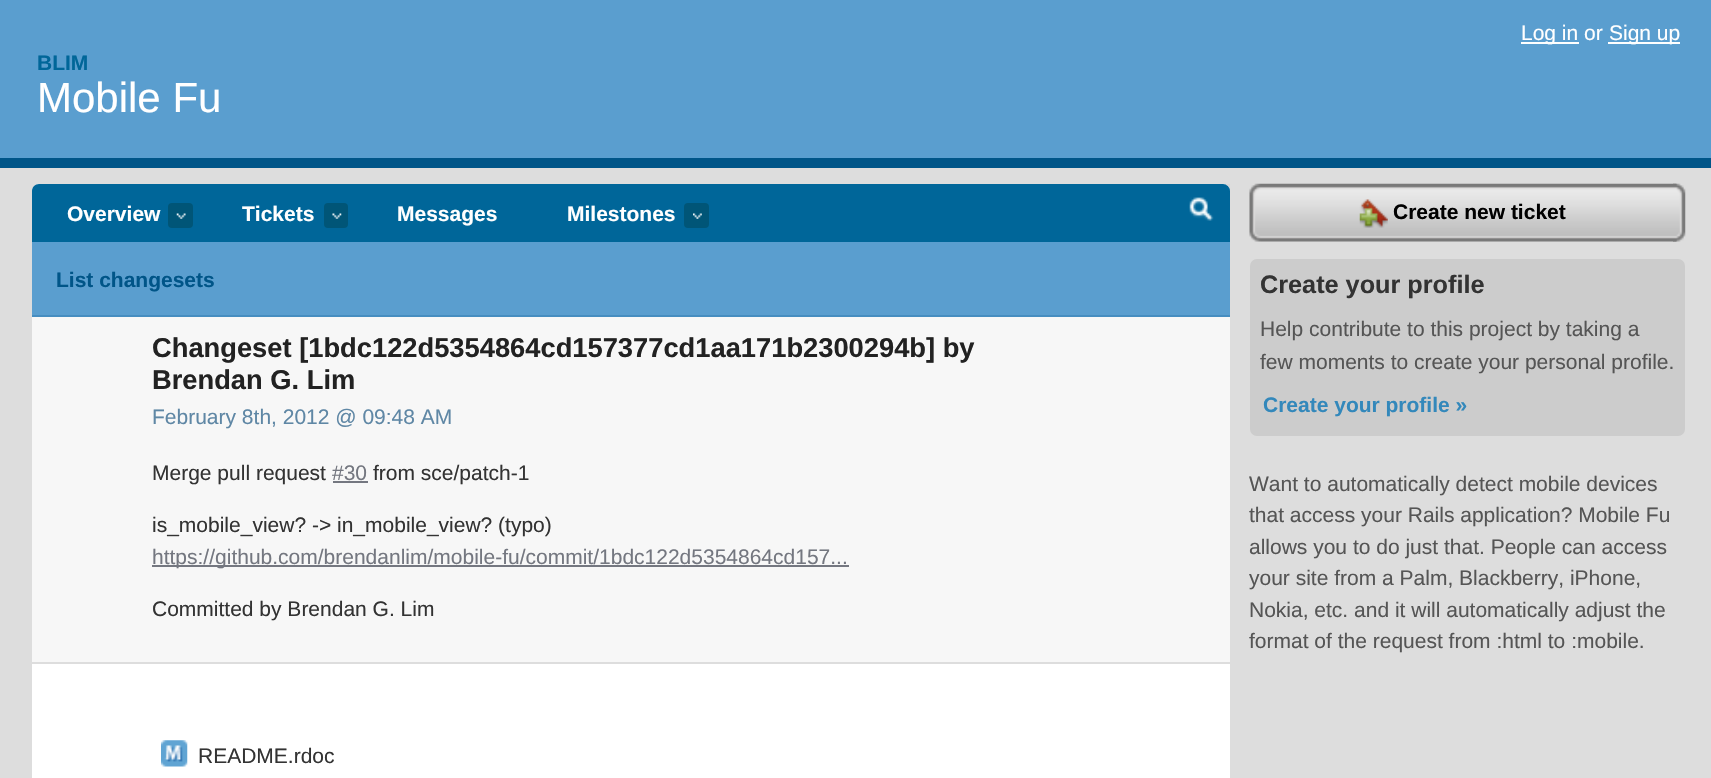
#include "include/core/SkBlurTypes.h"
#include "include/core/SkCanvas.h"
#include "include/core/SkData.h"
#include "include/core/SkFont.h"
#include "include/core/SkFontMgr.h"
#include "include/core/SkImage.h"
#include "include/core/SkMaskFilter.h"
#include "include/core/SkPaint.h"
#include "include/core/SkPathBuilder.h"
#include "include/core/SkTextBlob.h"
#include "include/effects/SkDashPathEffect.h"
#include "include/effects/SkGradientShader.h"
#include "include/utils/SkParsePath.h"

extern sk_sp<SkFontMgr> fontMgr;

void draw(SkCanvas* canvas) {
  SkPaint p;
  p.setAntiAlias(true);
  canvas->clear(SkColorSetRGB(221, 221, 221));
  p.setColor(SkColorSetRGB(90, 158, 207));
  canvas->drawRect(SkRect::MakeLTRB(0, 0, 1711, 158), p);
  p.setColor(SkColorSetRGB(0, 85, 136));
  canvas->drawRect(SkRect::MakeLTRB(0, 158, 1711, 168), p);
  p.setColor(SK_ColorWHITE);
  canvas->drawRect(SkRect::MakeLTRB(1521, 42, 1579, 44), p);
  canvas->drawRect(SkRect::MakeLTRB(1608, 42, 1680, 44), p);
  canvas->drawPath(SkPathBuilder().moveTo(39, 184).lineTo(1223, 184).cubicTo(1227, 184, 1230, 187, 1230, 191).lineTo(1230, 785).lineTo(32, 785).lineTo(32, 191).cubicTo(32, 187, 35, 184, 39, 184).close().detach(), p);
  p.setColor(SkColorSetRGB(0, 102, 153));
  canvas->drawPath(SkPathBuilder().moveTo(39, 184).lineTo(1223, 184).cubicTo(1227, 184, 1230, 187, 1230, 191).lineTo(1230, 242).lineTo(32, 242).lineTo(32, 191).cubicTo(32, 187, 35, 184, 39, 184).close().detach(), p);
  p.setColor(SkColorSetRGB(0, 85, 119));
  canvas->drawRoundRect(SkRect::MakeLTRB(168, 203, 193, 228), 4, 4, p);
  canvas->drawImageRect(SkImages::DeferredFromEncodedData(SkData::MakeFromFileName("images/1.png")), SkRect::MakeLTRB(176, 213, 186, 219), SkSamplingOptions());
  canvas->drawRoundRect(SkRect::MakeLTRB(324, 203, 348, 228), 4, 4, p);
  canvas->drawImageRect(SkImages::DeferredFromEncodedData(SkData::MakeFromFileName("images/2.png")), SkRect::MakeLTRB(332, 213, 342, 219), SkSamplingOptions());
  canvas->drawRoundRect(SkRect::MakeLTRB(684, 203, 709, 228), 4, 4, p);
  canvas->drawImageRect(SkImages::DeferredFromEncodedData(SkData::MakeFromFileName("images/3.png")), SkRect::MakeLTRB(693, 213, 702, 219), SkSamplingOptions());
  canvas->drawImageRect(SkImages::DeferredFromEncodedData(SkData::MakeFromFileName("images/4.png")), SkRect::MakeLTRB(1226, 184, 1230, 188), SkSamplingOptions());
  canvas->drawImageRect(SkImages::DeferredFromEncodedData(SkData::MakeFromFileName("images/5.png")), SkRect::MakeLTRB(1189, 197, 1214, 221), SkSamplingOptions());
  p.setColor(SkColorSetRGB(90, 158, 207));
  canvas->drawRect(SkRect::MakeLTRB(32, 242, 1230, 315), p);
  p.setColor(SkColorSetRGB(70, 141, 192));
  canvas->drawRect(SkRect::MakeLTRB(32, 315, 1230, 317), p);
  p.setColor(SkColorSetRGB(247, 247, 247));
  canvas->drawRect(SkRect::MakeLTRB(32, 317, 1230, 662), p);
  p.setColor(SkColorSetRGB(221, 221, 221));
  canvas->drawRect(SkRect::MakeLTRB(32, 662, 1230, 664), p);
  p.setColor(SkColorSetRGB(116, 119, 128));
  canvas->drawRect(SkRect::MakeLTRB(333, 481, 368, 483), p);
  canvas->drawRect(SkRect::MakeLTRB(152, 565, 849, 567), p);
  canvas->drawImageRect(SkImages::DeferredFromEncodedData(SkData::MakeFromFileName("images/6.png")), SkRect::MakeLTRB(161, 740, 188, 767), SkSamplingOptions());
  canvas->drawImageRect(SkImages::DeferredFromEncodedData(SkData::MakeFromFileName("images/7.png")), SkRect::MakeLTRB(1673, 183, 1686, 242), SkSamplingOptions());
  canvas->drawImageRect(SkImages::DeferredFromEncodedData(SkData::MakeFromFileName("images/8.png")), SkRect::MakeLTRB(1249, 183, 1677, 242), SkSamplingOptions());
  canvas->drawImageRect(SkImages::DeferredFromEncodedData(SkData::MakeFromFileName("images/9.png")), SkRect::MakeLTRB(1359, 199, 1388, 228), SkSamplingOptions());
  p.setColor(SkColorSetRGB(204, 204, 204));
  canvas->drawRoundRect(SkRect::MakeLTRB(1250, 259, 1685, 436), 7, 7, p);
  SkFont font1(fontMgr->matchFamilyStyle("Liberation Sans", SkFontStyle::Normal()), 21);
  font1.setSubpixel(true);
  p.setColor(SK_ColorWHITE);
  canvas->drawString("Log in or", 1521, 40, font1, p);
  canvas->drawString("Sign up", 1609, 40, font1, p);
  SkFont font2(fontMgr->matchFamilyStyle("Liberation Sans", SkFontStyle::Bold()), 21);
  font2.setSubpixel(true);
  p.setColor(SkColorSetRGB(0, 102, 153));
  canvas->drawString("BLIM", 37, 70, font2, p);
  SkFont font3(fontMgr->matchFamilyStyle("Liberation Sans", SkFontStyle::Normal()), 42);
  font3.setSubpixel(true);
  p.setColor(SK_ColorWHITE);
  canvas->drawString("Mobile Fu", 37, 112, font3, p);
  canvas->drawString("Overview", 67, 221, font2, p);
  canvas->drawString("Tickets", 242, 221, font2, p);
  canvas->drawString("Messages", 397, 221, font2, p);
  canvas->drawString("Milestones", 567, 221, font2, p);
  p.setColor(SkColorSetRGB(0, 85, 136));
  canvas->drawString("List changesets", 56, 287, font2, p);
  SkFont font4(fontMgr->matchFamilyStyle("Liberation Sans", SkFontStyle::Bold()), 27.3f);
  font4.setSubpixel(true);
  p.setColor(SkColorSetRGB(34, 34, 34));
  canvas->drawString("Changeset [1bdc122d5354864cd157377cd1aa171b2300294b] by", 152, 357, font4, p);
  canvas->drawString("Brendan G. Lim", 152, 389, font4, p);
  p.setColor(SkColorSetRGB(95, 135, 165));
  canvas->drawString("February 8th, 2012 @ 09:48 AM", 152, 424, font1, p);
  p.setColor(SkColorSetRGB(51, 51, 51));
  canvas->drawString("Merge pull request", 152, 480, font1, p);
  p.setColor(SkColorSetRGB(116, 119, 128));
  canvas->drawString("#30", 332, 480, font1, p);
  p.setColor(SkColorSetRGB(51, 51, 51));
  canvas->drawString("from sce/patch-1", 373, 480, font1, p);
  canvas->drawString("is_mobile_view? -> in_mobile_view? (typo)", 152, 532, font1, p);
  p.setColor(SkColorSetRGB(116, 119, 128));
  canvas->drawString("https://github.com/brendanlim/mobile-fu/commit/1bdc122d5354864cd157...", 152, 564, font1, p);
  p.setColor(SkColorSetRGB(51, 51, 51));
  canvas->drawString("Committed by Brendan G. Lim", 152, 616, font1, p);
  canvas->drawString("README.rdoc", 198, 763, font1, p);
  p.setColor(SK_ColorBLACK);
  canvas->drawString("Create new ticket", 1393, 219, font2, p);
  SkFont font5(fontMgr->matchFamilyStyle("Liberation Sans", SkFontStyle::Bold()), 25.25f);
  font5.setSubpixel(true);
  p.setColor(SkColorSetRGB(51, 51, 51));
  canvas->drawString("Create your profile", 1260, 293, font5, p);
  p.setColor(SkColorSetRGB(85, 85, 85));
  canvas->drawString("Help contribute to this project by taking a", 1260, 336, font1, p);
  canvas->drawString("few moments to create your personal profile.", 1260, 369, font1, p);
  p.setColor(SkColorSetRGB(51, 136, 187));
  canvas->drawString("Create your profile »", 1263, 412, font2, p);
  p.setColor(SkColorSetRGB(85, 85, 85));
  canvas->drawString("Want to automatically detect mobile devices", 1249, 491, font1, p);
  canvas->drawString("that access your Rails application? Mobile Fu", 1249, 522, font1, p);
  canvas->drawString("allows you to do just that. People can access", 1249, 554, font1, p);
  canvas->drawString("your site from a Palm, Blackberry, iPhone,", 1249, 585, font1, p);
  canvas->drawString("Nokia, etc. and it will automatically adjust the", 1249, 617, font1, p);
  canvas->drawString("format of the request from :html to :mobile.", 1249, 648, font1, p);
}
